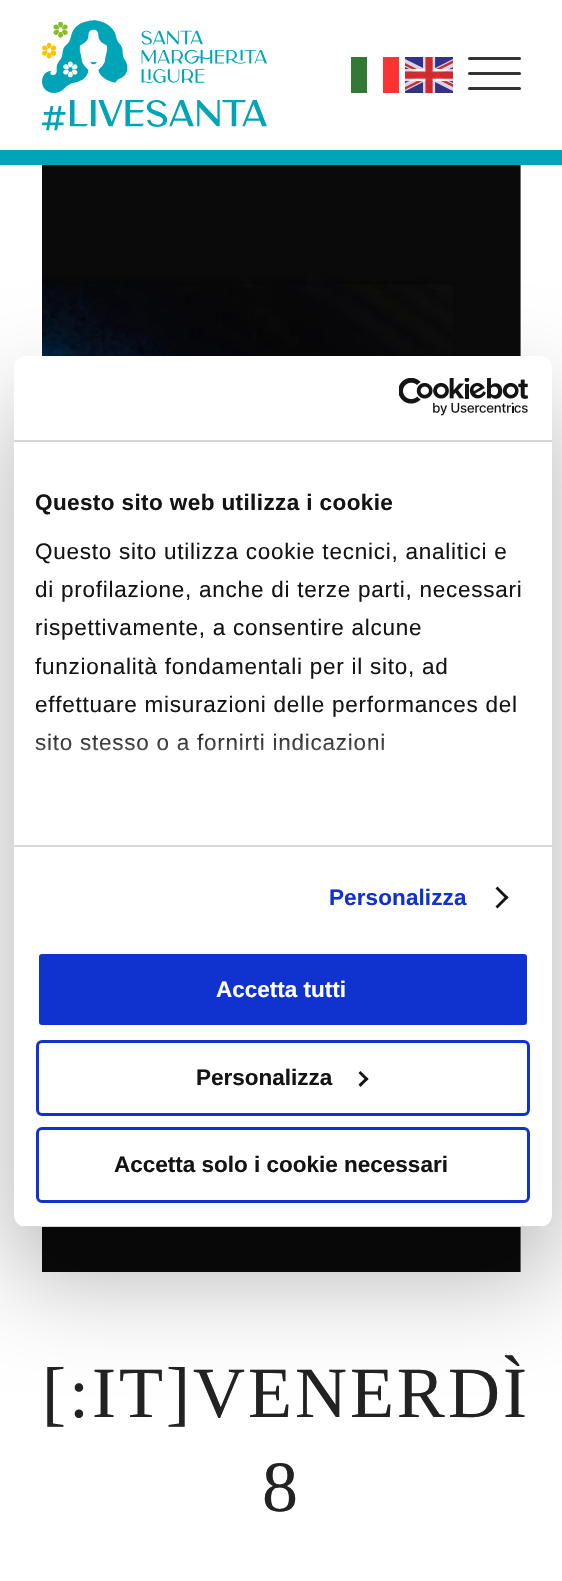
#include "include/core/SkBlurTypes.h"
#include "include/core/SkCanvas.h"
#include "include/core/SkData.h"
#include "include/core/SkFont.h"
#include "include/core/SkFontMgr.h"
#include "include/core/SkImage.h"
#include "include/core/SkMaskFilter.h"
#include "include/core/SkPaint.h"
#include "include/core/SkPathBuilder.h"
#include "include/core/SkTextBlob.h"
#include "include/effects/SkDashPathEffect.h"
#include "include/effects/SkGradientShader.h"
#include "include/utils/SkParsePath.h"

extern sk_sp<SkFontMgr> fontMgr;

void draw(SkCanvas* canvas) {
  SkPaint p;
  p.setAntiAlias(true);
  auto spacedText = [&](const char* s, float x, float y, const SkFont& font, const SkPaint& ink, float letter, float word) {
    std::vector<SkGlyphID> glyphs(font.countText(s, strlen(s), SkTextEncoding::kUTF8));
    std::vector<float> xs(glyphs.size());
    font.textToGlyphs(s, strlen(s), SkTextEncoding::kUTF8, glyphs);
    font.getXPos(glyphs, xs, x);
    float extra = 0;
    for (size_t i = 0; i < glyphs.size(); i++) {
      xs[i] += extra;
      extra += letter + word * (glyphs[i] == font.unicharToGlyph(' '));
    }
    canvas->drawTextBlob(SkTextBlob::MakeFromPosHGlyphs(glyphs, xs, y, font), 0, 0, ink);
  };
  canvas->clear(SK_ColorWHITE);
  p.setColor(SkColorSetRGB(145, 145, 145));
  canvas->drawRect(SkRect::MakeLTRB(520, 165, 521, 1272), p);
  canvas->drawImageRect(SkImages::DeferredFromEncodedData(SkData::MakeFromFileName("images/4.png")), SkRect::MakeLTRB(42, 165, 521, 1272), SkSamplingOptions());
  p.setColor(SkColorSetARGB(77, 0, 0, 0));
  p.setMaskFilter(SkMaskFilter::MakeBlur(kNormal_SkBlurStyle, 51));
  canvas->drawRoundRect(SkRect::MakeLTRB(14, 404, 552, 1275), 12, 12, p);
  p.setMaskFilter(nullptr);
  p.setColor(SK_ColorWHITE);
  canvas->drawRoundRect(SkRect::MakeLTRB(14, 356, 552, 1227), 12, 12, p);
  p.setColor(SkColorSetRGB(214, 214, 214));
  canvas->drawRect(SkRect::MakeLTRB(14, 440, 552, 442), p);
  canvas->drawImageRect(SkImages::DeferredFromEncodedData(SkData::MakeFromFileName("images/1.png")), SkRect::MakeLTRB(399, 378, 529, 416), SkSamplingOptions());
  canvas->drawRect(SkRect::MakeLTRB(14, 845, 552, 847), p);
  p.setColor(SkColorSetRGB(20, 20, 20));
  canvas->drawPath(SkPathBuilder().moveTo(497.5f, 886.5f).lineTo(508.5f, 897.5f).lineTo(506.5f, 899.5f).lineTo(495.5f, 888.5f).close().detach(), p);
  canvas->drawPath(SkPathBuilder().moveTo(506.5f, 895.5f).lineTo(508.5f, 897.5f).lineTo(497.5f, 908.5f).lineTo(495.5f, 906.5f).close().detach(), p);
  canvas->save();
  canvas->clipPath(SkPathBuilder().moveTo(26, 356).lineTo(540, 356).cubicTo(546.5f, 356, 552, 361.5f, 552, 368).lineTo(552, 1215).cubicTo(552, 1221.5f, 546.5f, 1227, 540, 1227).lineTo(26, 1227).cubicTo(19.5f, 1227, 14, 1221.5f, 14, 1215).lineTo(14, 368).cubicTo(14, 361.5f, 19.5f, 356, 26, 356).close().detach(), true);
  p.setColor(SkColorSetRGB(214, 214, 214));
  canvas->drawRect(SkRect::MakeLTRB(14, 1226, 552, 1227), p);
  canvas->restore();
  p.setColor(SkColorSetRGB(16, 50, 207));
  canvas->drawRoundRect(SkRect::MakeLTRB(37.5f, 952.5f, 528.5f, 1026.5f), 4.5f, 4.5f, p);
  p.setStyle(SkPaint::kStroke_Style);
  p.setStrokeWidth(3);
  p.setColor(SK_ColorWHITE);
  canvas->drawRoundRect(SkRect::MakeLTRB(37.5f, 952.5f, 528.5f, 1026.5f), 4.5f, 4.5f, p);
  p.setColor(SkColorSetRGB(16, 50, 207));
  canvas->drawRoundRect(SkRect::MakeLTRB(37.5f, 1041.5f, 528.5f, 1114.5f), 4.5f, 4.5f, p);
  p.setStyle(SkPaint::kFill_Style);
  p.setColor(SkColorSetRGB(20, 20, 20));
  canvas->drawPath(SkPathBuilder().moveTo(360.5f, 1071).lineTo(368.5f, 1079).lineTo(366.5f, 1081).lineTo(358.5f, 1073).close().detach(), p);
  canvas->drawPath(SkPathBuilder().moveTo(366.5f, 1077).lineTo(368.5f, 1079).lineTo(360.5f, 1087).lineTo(358.5f, 1084.5f).close().detach(), p);
  p.setStyle(SkPaint::kStroke_Style);
  p.setColor(SkColorSetRGB(16, 50, 207));
  canvas->drawRoundRect(SkRect::MakeLTRB(37.5f, 1128.5f, 528.5f, 1201.5f), 4.5f, 4.5f, p);
  p.setStyle(SkPaint::kFill_Style);
  p.setColor(SkColorSetRGB(0, 164, 183));
  canvas->drawRect(SkRect::MakeLTRB(0, 150, 562, 165), p);
  canvas->drawImageRect(SkImages::DeferredFromEncodedData(SkData::MakeFromFileName("images/2.png")), SkRect::MakeLTRB(42, 20, 267, 131), SkSamplingOptions());
  p.setColor(SkColorSetRGB(51, 121, 51));
  canvas->drawRect(SkRect::MakeLTRB(351, 57, 367, 93), p);
  p.setColor(SkColorSetRGB(253, 51, 51));
  canvas->drawRect(SkRect::MakeLTRB(383, 57, 399, 93), p);
  canvas->drawImageRect(SkImages::DeferredFromEncodedData(SkData::MakeFromFileName("images/3.png")), SkRect::MakeLTRB(405, 57, 453, 93), SkSamplingOptions());
  p.setColor(SkColorSetRGB(51, 51, 51));
  canvas->drawRoundRect(SkRect::MakeLTRB(468, 72, 521, 75), 1.5f, 1.5f, p);
  canvas->drawRoundRect(SkRect::MakeLTRB(468, 57, 521, 60), 1.5f, 1.5f, p);
  canvas->drawRoundRect(SkRect::MakeLTRB(468, 87, 521, 90), 1.5f, 1.5f, p);
  SkFont font1(fontMgr->matchFamilyStyle("Liberation Sans", SkFontStyle::Bold()), 22.5f);
  font1.setSubpixel(true);
  p.setColor(SkColorSetRGB(20, 20, 20));
  spacedText("Questo sito web utilizza i cookie", 35, 510, font1, p, 0.4f, 0);
  SkFont font2(fontMgr->matchFamilyStyle("Liberation Sans", SkFontStyle::Normal()), 22.5f);
  font2.setSubpixel(true);
  spacedText("Questo sito utilizza cookie tecnici, analitici e", 35, 559, font2, p, 0.75f, 0);
  spacedText("di profilazione, anche di terze parti, necessari", 35, 597, font2, p, 0.75f, 0);
  spacedText("rispettivamente, a consentire alcune", 35, 635, font2, p, 0.75f, 0);
  spacedText("funzionalità fondamentali per il sito, ad", 35, 674, font2, p, 0.75f, 0);
  spacedText("effettuare misurazioni delle performances del", 35, 712, font2, p, 0.75f, 0);
  spacedText("sito stesso o a fornirti indicazioni", 35, 750, font2, p, 0.75f, 0);
  {
    const SkColor colors[] = {SK_ColorWHITE, SkColorSetARGB(204, 255, 255, 255), SkColorSetARGB(0, 255, 255, 255)};
    const float stops[] = {0, 0.5f, 1};
    const SkPoint ends[] = {{272, 844}, {272, 731}};
    p.setShader(SkGradientShader::MakeLinear(ends, colors, stops, 3, SkTileMode::kClamp));
    p.setAlpha(255);
  }
  canvas->drawRect(SkRect::MakeLTRB(35, 733, 384, 751), p);
  p.setShader(nullptr);
  p.setColor(SkColorSetRGB(16, 50, 207));
  spacedText("Personalizza", 329, 905, font1, p, 0.1f, 0);
  p.setColor(SK_ColorWHITE);
  canvas->drawString("Accetta tutti", 216, 997, font1, p);
  p.setColor(SkColorSetRGB(20, 20, 20));
  canvas->drawString("Personalizza", 196, 1085, font1, p);
  canvas->drawString("Accetta solo i cookie necessari", 114, 1172, font1, p);
  SkFont font3(fontMgr->matchFamilyStyle("Liberation Serif", SkFontStyle::Normal()), 72);
  font3.setSubpixel(true);
  p.setColor(SkColorSetRGB(34, 34, 34));
  spacedText("[:IT]VENERDÌ", 42, 1417, font3, p, 3, 0);
  spacedText("8", 262, 1511, font3, p, 3, 0);
}
